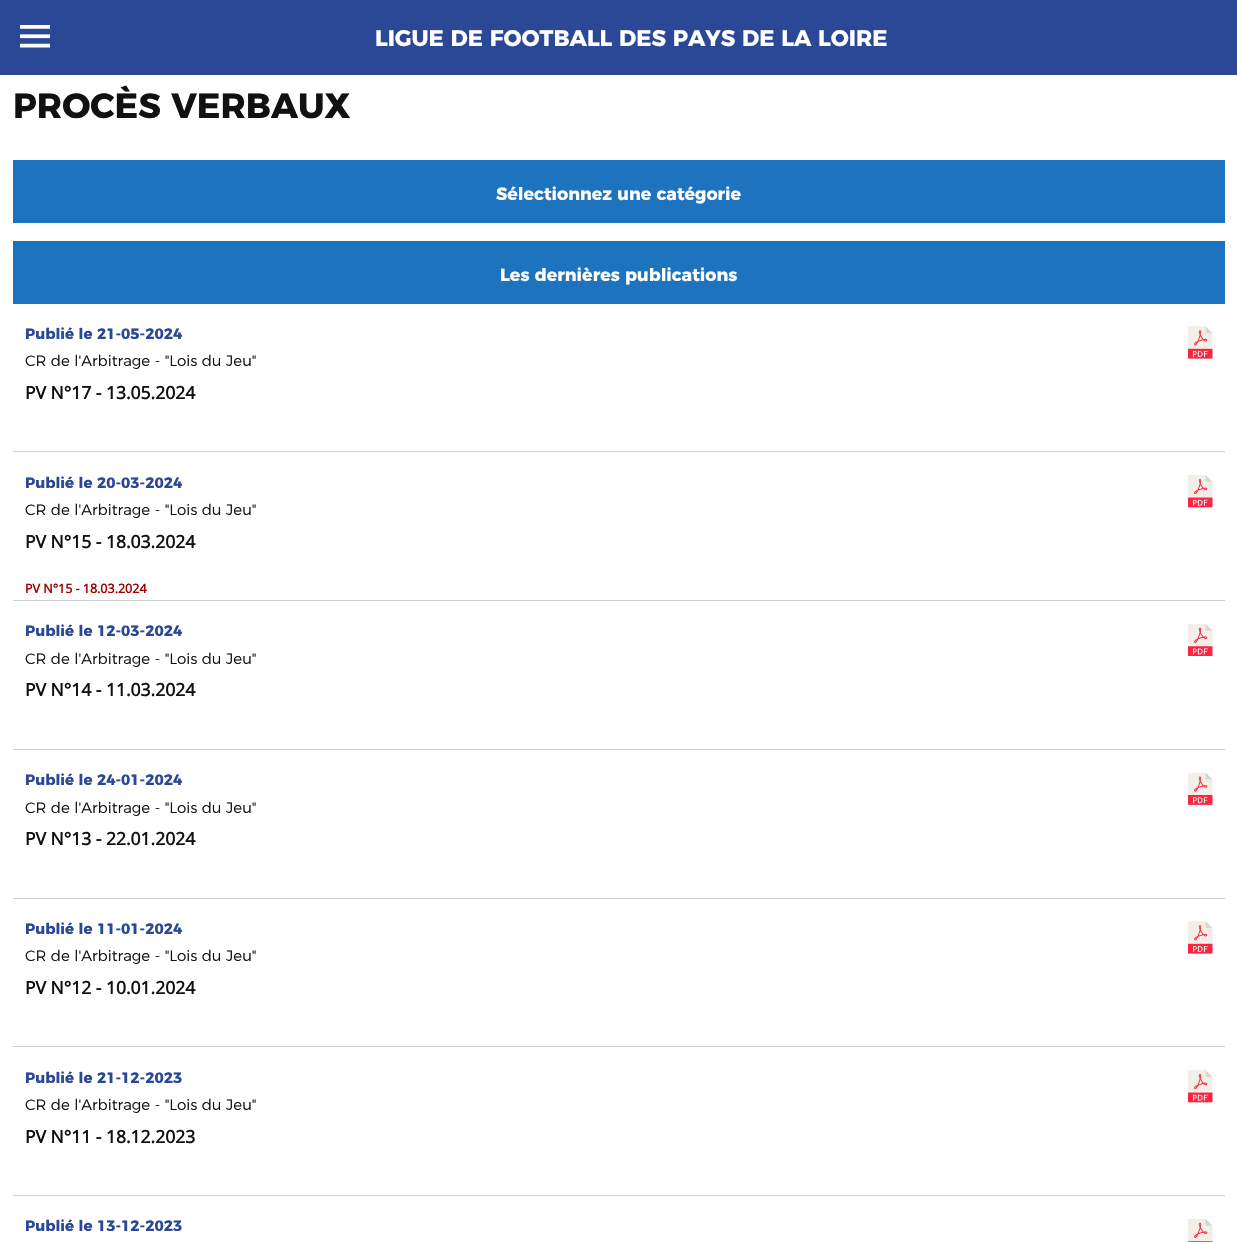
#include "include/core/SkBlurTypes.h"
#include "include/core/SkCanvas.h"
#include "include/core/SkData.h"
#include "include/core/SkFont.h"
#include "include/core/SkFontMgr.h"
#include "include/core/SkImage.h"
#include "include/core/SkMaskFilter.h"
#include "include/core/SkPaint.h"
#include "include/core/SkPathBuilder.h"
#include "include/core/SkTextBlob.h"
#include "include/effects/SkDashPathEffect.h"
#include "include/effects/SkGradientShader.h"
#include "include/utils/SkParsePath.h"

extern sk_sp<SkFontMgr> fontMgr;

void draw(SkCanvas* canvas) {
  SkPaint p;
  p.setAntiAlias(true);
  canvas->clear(SK_ColorWHITE);
  p.setColor(SkColorSetRGB(42, 72, 150));
  canvas->drawRect(SkRect::MakeLTRB(0, 0, 1237, 75), p);
  canvas->drawImageRect(SkImages::DeferredFromEncodedData(SkData::MakeFromFileName("images/1.png")), SkRect::MakeLTRB(20, 25, 50, 48), SkSamplingOptions());
  p.setColor(SkColorSetRGB(30, 115, 190));
  canvas->drawRect(SkRect::MakeLTRB(13, 160, 1225, 223), p);
  canvas->drawRect(SkRect::MakeLTRB(13, 241, 1225, 304), p);
  p.setColor(SkColorSetRGB(206, 206, 206));
  canvas->drawRect(SkRect::MakeLTRB(13, 451, 1225, 452), p);
  canvas->drawImageRect(SkImages::DeferredFromEncodedData(SkData::MakeFromFileName("images/2.png")), SkRect::MakeLTRB(1188, 326, 1213, 359), SkSamplingOptions());
  canvas->drawRect(SkRect::MakeLTRB(13, 600, 1225, 601), p);
  canvas->drawImageRect(SkImages::DeferredFromEncodedData(SkData::MakeFromFileName("images/3.png")), SkRect::MakeLTRB(1188, 475, 1213, 508), SkSamplingOptions());
  canvas->drawRect(SkRect::MakeLTRB(13, 749, 1225, 750), p);
  canvas->drawImageRect(SkImages::DeferredFromEncodedData(SkData::MakeFromFileName("images/4.png")), SkRect::MakeLTRB(1188, 624, 1213, 656), SkSamplingOptions());
  canvas->drawRect(SkRect::MakeLTRB(13, 898, 1225, 899), p);
  canvas->drawImageRect(SkImages::DeferredFromEncodedData(SkData::MakeFromFileName("images/5.png")), SkRect::MakeLTRB(1188, 773, 1213, 805), SkSamplingOptions());
  canvas->drawRect(SkRect::MakeLTRB(13, 1046, 1225, 1047), p);
  canvas->drawImageRect(SkImages::DeferredFromEncodedData(SkData::MakeFromFileName("images/2.png")), SkRect::MakeLTRB(1188, 921, 1213, 954), SkSamplingOptions());
  canvas->drawRect(SkRect::MakeLTRB(13, 1195, 1225, 1196), p);
  canvas->drawImageRect(SkImages::DeferredFromEncodedData(SkData::MakeFromFileName("images/3.png")), SkRect::MakeLTRB(1188, 1070, 1213, 1103), SkSamplingOptions());
  canvas->drawImageRect(SkImages::DeferredFromEncodedData(SkData::MakeFromFileName("images/6.png")), SkRect::MakeLTRB(1188, 1219, 1213, 1242), SkSamplingOptions());
  SkFont font1(fontMgr->matchFamilyStyle("Montserrat", SkFontStyle::Bold()), 22.5f);
  font1.setSubpixel(true);
  p.setColor(SK_ColorWHITE);
  canvas->drawString("LIGUE DE FOOTBALL DES PAYS DE LA LOIRE", 375, 46, font1, p);
  SkFont font2(fontMgr->matchFamilyStyle("Montserrat", SkFontStyle::Bold()), 35);
  font2.setSubpixel(true);
  p.setColor(SkColorSetRGB(17, 17, 17));
  canvas->drawString("PROCÈS VERBAUX", 13, 118, font2, p);
  SkFont font3(fontMgr->matchFamilyStyle("Montserrat", SkFontStyle::Bold()), 17.5f);
  font3.setSubpixel(true);
  p.setColor(SK_ColorWHITE);
  canvas->drawString("Sélectionnez une catégorie", 496, 200, font3, p);
  canvas->drawString("Les dernières publications", 500, 281, font3, p);
  SkFont font4(fontMgr->matchFamilyStyle("Montserrat", SkFontStyle::Bold()), 15);
  font4.setSubpixel(true);
  p.setColor(SkColorSetRGB(42, 72, 150));
  canvas->drawString("Publié le 21-05-2024", 25, 339, font4, p);
  SkFont font5(fontMgr->matchFamilyStyle("Montserrat", SkFontStyle(300, SkFontStyle::kNormal_Width, SkFontStyle::kUpright_Slant)), 15);
  font5.setSubpixel(true);
  p.setColor(SkColorSetRGB(17, 17, 17));
  canvas->drawString("CR de l'Arbitrage - \"Lois du Jeu\"", 25, 366, font5, p);
  SkFont font6(fontMgr->matchFamilyStyle("Open Sans", SkFontStyle::Bold()), 17.5f);
  font6.setSubpixel(true);
  canvas->drawString("PV N°17 - 13.05.2024", 25, 399, font6, p);
  p.setColor(SkColorSetRGB(42, 72, 150));
  canvas->drawString("Publié le 20-03-2024", 25, 488, font4, p);
  p.setColor(SkColorSetRGB(17, 17, 17));
  canvas->drawString("CR de l'Arbitrage - \"Lois du Jeu\"", 25, 515, font5, p);
  canvas->drawString("PV N°15 - 18.03.2024", 25, 548, font6, p);
  SkFont font7(fontMgr->matchFamilyStyle("Open Sans", SkFontStyle::Bold()), 12.5f);
  font7.setSubpixel(true);
  p.setColor(SkColorSetRGB(160, 0, 0));
  canvas->drawString("PV N°15 - 18.03.2024", 25, 593, font7, p);
  p.setColor(SkColorSetRGB(42, 72, 150));
  canvas->drawString("Publié le 12-03-2024", 25, 636, font4, p);
  p.setColor(SkColorSetRGB(17, 17, 17));
  canvas->drawString("CR de l'Arbitrage - \"Lois du Jeu\"", 25, 664, font5, p);
  canvas->drawString("PV N°14 - 11.03.2024", 25, 696, font6, p);
  p.setColor(SkColorSetRGB(42, 72, 150));
  canvas->drawString("Publié le 24-01-2024", 25, 785, font4, p);
  p.setColor(SkColorSetRGB(17, 17, 17));
  canvas->drawString("CR de l'Arbitrage - \"Lois du Jeu\"", 25, 813, font5, p);
  canvas->drawString("PV N°13 - 22.01.2024", 25, 845, font6, p);
  p.setColor(SkColorSetRGB(42, 72, 150));
  canvas->drawString("Publié le 11-01-2024", 25, 934, font4, p);
  p.setColor(SkColorSetRGB(17, 17, 17));
  canvas->drawString("CR de l'Arbitrage - \"Lois du Jeu\"", 25, 961, font5, p);
  canvas->drawString("PV N°12 - 10.01.2024", 25, 994, font6, p);
  p.setColor(SkColorSetRGB(42, 72, 150));
  canvas->drawString("Publié le 21-12-2023", 25, 1083, font4, p);
  p.setColor(SkColorSetRGB(17, 17, 17));
  canvas->drawString("CR de l'Arbitrage - \"Lois du Jeu\"", 25, 1110, font5, p);
  canvas->drawString("PV N°11 - 18.12.2023", 25, 1143, font6, p);
  p.setColor(SkColorSetRGB(42, 72, 150));
  canvas->drawString("Publié le 13-12-2023", 25, 1231, font4, p);
}
